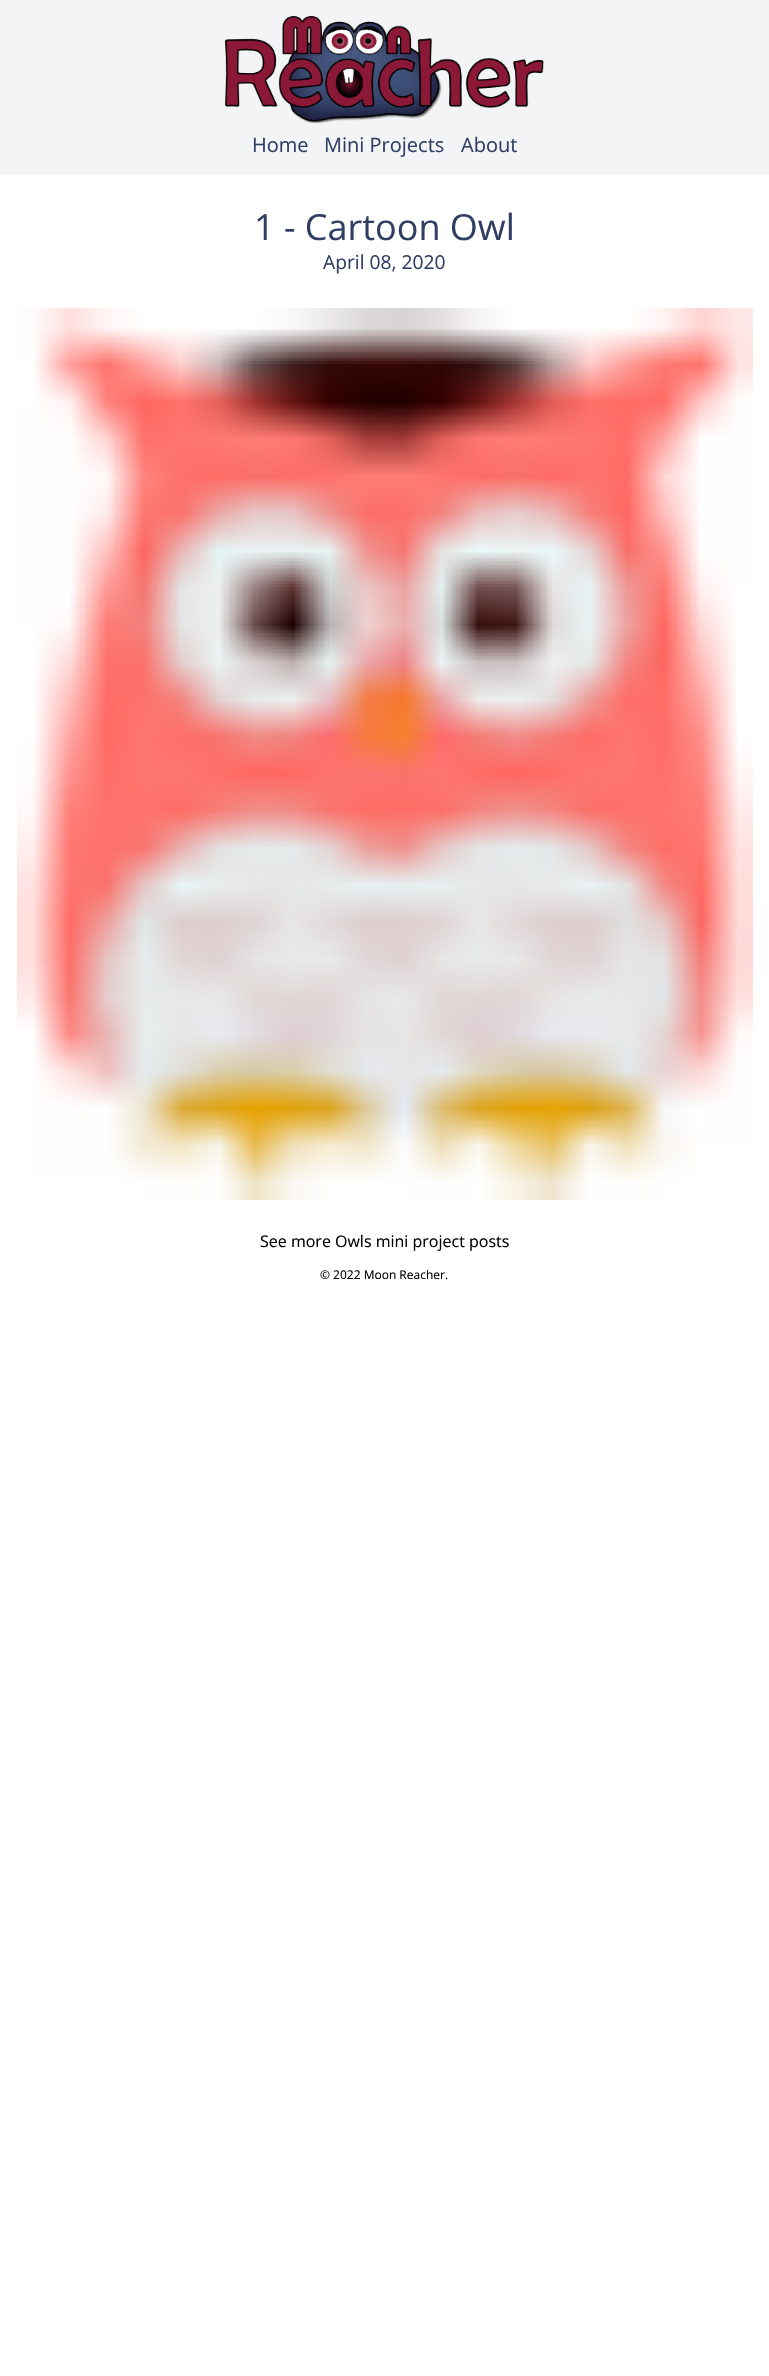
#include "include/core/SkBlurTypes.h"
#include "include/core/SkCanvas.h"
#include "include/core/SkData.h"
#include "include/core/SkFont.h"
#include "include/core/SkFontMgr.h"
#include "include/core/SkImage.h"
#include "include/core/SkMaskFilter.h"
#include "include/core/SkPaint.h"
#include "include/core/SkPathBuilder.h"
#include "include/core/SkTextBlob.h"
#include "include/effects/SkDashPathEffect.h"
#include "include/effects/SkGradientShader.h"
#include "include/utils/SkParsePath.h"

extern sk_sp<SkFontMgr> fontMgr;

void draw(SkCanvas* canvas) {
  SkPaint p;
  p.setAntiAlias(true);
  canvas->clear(SK_ColorWHITE);
  p.setColor(SkColorSetRGB(243, 244, 246));
  canvas->drawRect(SkRect::MakeLTRB(0, 0, 769, 175), p);
  canvas->drawImageRect(SkImages::DeferredFromEncodedData(SkData::MakeFromFileName("images/1.png")), SkRect::MakeLTRB(225, 16, 544, 123), SkSamplingOptions());
  canvas->drawImageRect(SkImages::DeferredFromEncodedData(SkData::MakeFromFileName("images/2.png")), SkRect::MakeLTRB(17, 308, 753, 1200), SkSamplingOptions());
  SkFont font1(fontMgr->matchFamilyStyle("Open Sans", SkFontStyle::Normal()), 20);
  font1.setSubpixel(true);
  p.setColor(SkColorSetRGB(49, 63, 101));
  canvas->drawString("Home", 252, 152, font1, p);
  canvas->drawString("Mini Projects", 324, 152, font1, p);
  canvas->drawString("About", 461, 152, font1, p);
  SkFont font2(fontMgr->matchFamilyStyle("Open Sans", SkFontStyle::Normal()), 36);
  font2.setSubpixel(true);
  canvas->drawString("1 - Cartoon Owl", 254, 240, font2, p);
  SkFont font3(fontMgr->matchFamilyStyle("Open Sans", SkFontStyle::Normal()), 19.25f);
  font3.setSubpixel(true);
  canvas->drawString("April 08, 2020", 323, 269, font3, p);
  SkFont font4(fontMgr->matchFamilyStyle("Open Sans", SkFontStyle::Normal()), 16);
  font4.setSubpixel(true);
  p.setColor(SK_ColorBLACK);
  canvas->drawString("See more Owls mini project posts", 260, 1247, font4, p);
  SkFont font5(fontMgr->matchFamilyStyle("Open Sans", SkFontStyle::Normal()), 12);
  font5.setSubpixel(true);
  canvas->drawString("© 2022 Moon Reacher.", 320, 1279, font5, p);
}
